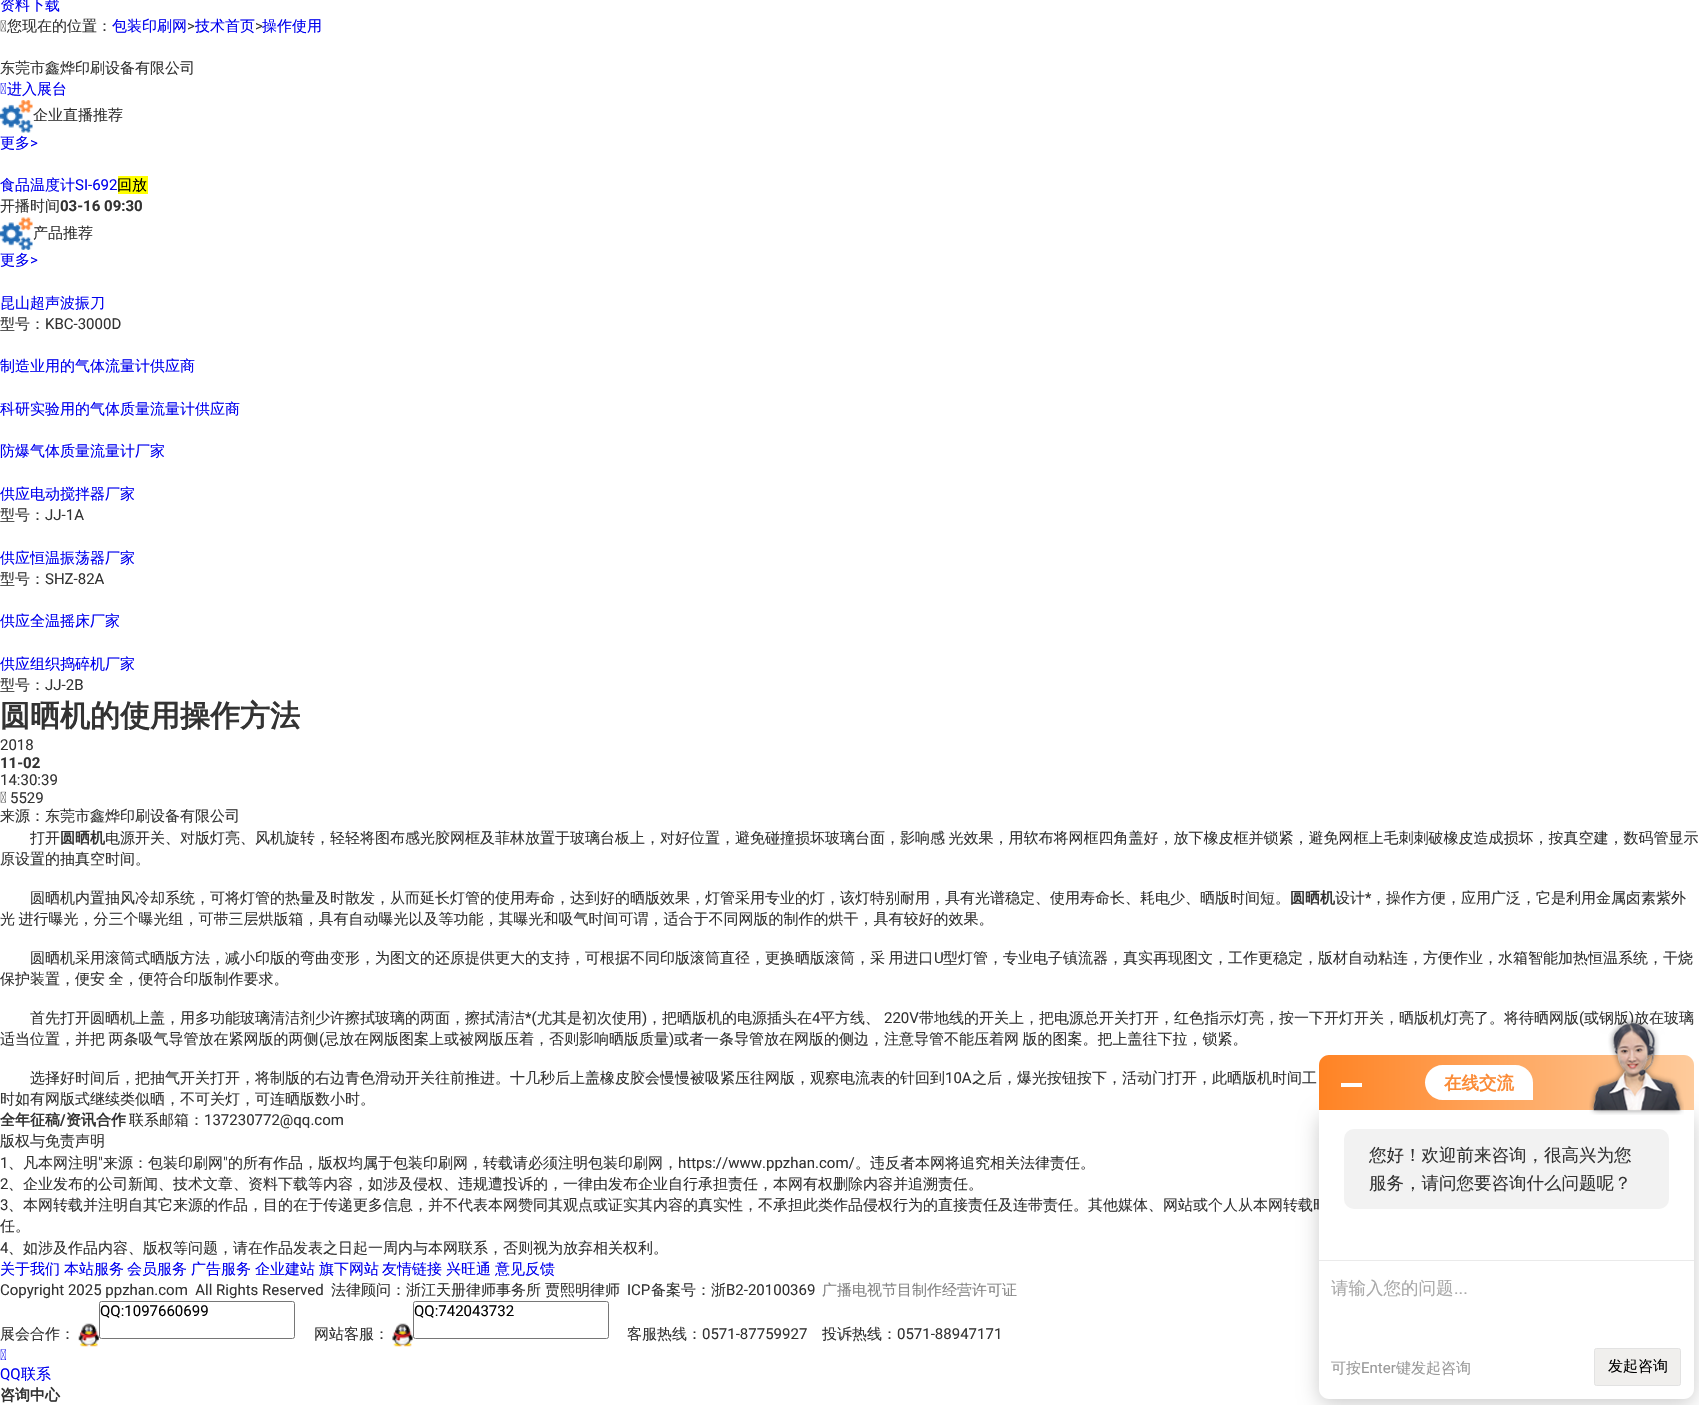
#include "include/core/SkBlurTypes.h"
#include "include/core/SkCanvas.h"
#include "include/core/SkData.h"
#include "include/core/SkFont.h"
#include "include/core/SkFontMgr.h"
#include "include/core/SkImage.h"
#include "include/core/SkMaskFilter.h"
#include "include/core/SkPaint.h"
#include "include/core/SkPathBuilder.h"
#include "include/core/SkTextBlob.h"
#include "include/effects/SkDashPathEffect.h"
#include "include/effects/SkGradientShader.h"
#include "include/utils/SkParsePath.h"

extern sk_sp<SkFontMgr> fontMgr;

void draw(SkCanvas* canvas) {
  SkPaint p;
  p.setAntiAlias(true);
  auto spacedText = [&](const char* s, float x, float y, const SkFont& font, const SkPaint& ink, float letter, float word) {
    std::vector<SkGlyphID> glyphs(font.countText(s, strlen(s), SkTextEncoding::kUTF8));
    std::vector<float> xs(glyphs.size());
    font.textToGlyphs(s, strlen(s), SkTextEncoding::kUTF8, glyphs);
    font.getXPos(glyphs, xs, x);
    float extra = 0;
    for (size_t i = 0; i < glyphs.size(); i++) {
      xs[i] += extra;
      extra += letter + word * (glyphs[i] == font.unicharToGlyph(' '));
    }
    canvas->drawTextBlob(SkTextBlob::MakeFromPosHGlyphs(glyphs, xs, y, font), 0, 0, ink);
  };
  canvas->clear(SK_ColorWHITE);
  canvas->drawImageRect(SkImages::DeferredFromEncodedData(SkData::MakeFromFileName("images/1.png")), SkRect::MakeLTRB(0, 20, 6, 32), SkSamplingOptions());
  canvas->drawImageRect(SkImages::DeferredFromEncodedData(SkData::MakeFromFileName("images/2.png")), SkRect::MakeLTRB(0, 83, 6, 94), SkSamplingOptions());
  canvas->drawImageRect(SkImages::DeferredFromEncodedData(SkData::MakeFromFileName("images/3.png")), SkRect::MakeLTRB(0, 100, 33, 133), SkSamplingOptions());
  p.setColor(SkColorSetRGB(255, 255, 0));
  canvas->drawRect(SkRect::MakeLTRB(118, 176, 148, 194), p);
  canvas->drawImageRect(SkImages::DeferredFromEncodedData(SkData::MakeFromFileName("images/4.png")), SkRect::MakeLTRB(0, 217, 33, 250), SkSamplingOptions());
  canvas->drawImageRect(SkImages::DeferredFromEncodedData(SkData::MakeFromFileName("images/5.png")), SkRect::MakeLTRB(0, 791, 6, 803), SkSamplingOptions());
  p.setStyle(SkPaint::kStroke_Style);
  p.setStrokeWidth(1);
  p.setColor(SkColorSetRGB(118, 118, 118));
  canvas->drawRoundRect(SkRect::MakeLTRB(99.5f, 1301.5f, 294.5f, 1338.5f), 2, 2, p);
  canvas->drawImageRect(SkImages::DeferredFromEncodedData(SkData::MakeFromFileName("images/6.png")), SkRect::MakeLTRB(78, 1323, 99, 1347), SkSamplingOptions());
  canvas->drawRoundRect(SkRect::MakeLTRB(413.5f, 1301.5f, 608.5f, 1338.5f), 2, 2, p);
  canvas->drawImageRect(SkImages::DeferredFromEncodedData(SkData::MakeFromFileName("images/7.png")), SkRect::MakeLTRB(392, 1323, 413, 1347), SkSamplingOptions());
  p.setStyle(SkPaint::kFill_Style);
  p.setColor(SkColorSetARGB(51, 0, 0, 0));
  p.setMaskFilter(SkMaskFilter::MakeBlur(kNormal_SkBlurStyle, 10));
  canvas->drawRoundRect(SkRect::MakeLTRB(1319, 1115, 1694, 1404), 10, 10, p);
  p.setMaskFilter(nullptr);
  {
    const SkColor colors[] = {SkColorSetRGB(255, 131, 36), SkColorSetRGB(254, 203, 156)};
    const float stops[] = {0, 1};
    const SkPoint ends[] = {{1319, 1083}, {1694, 1083}};
    p.setShader(SkGradientShader::MakeLinear(ends, colors, stops, 2, SkTileMode::kClamp));
    p.setAlpha(255);
  }
  canvas->drawPath(SkPathBuilder().moveTo(1329, 1055).lineTo(1684, 1055).cubicTo(1689.5f, 1055, 1694, 1059.5f, 1694, 1065).lineTo(1694, 1110).lineTo(1319, 1110).lineTo(1319, 1065).cubicTo(1319, 1059.5f, 1323.5f, 1055, 1329, 1055).close().detach(), p);
  p.setShader(nullptr);
  p.setColor(SK_ColorWHITE);
  canvas->drawRect(SkRect::MakeLTRB(1341, 1083, 1362, 1087), p);
  canvas->drawPath(SkPathBuilder().moveTo(1442.5f, 1065).lineTo(1515.5f, 1065).cubicTo(1525, 1065, 1533, 1073, 1533, 1082.5f).lineTo(1533, 1100).lineTo(1442.5f, 1100).cubicTo(1433, 1100, 1425, 1092, 1425, 1082.5f).cubicTo(1425, 1073, 1433, 1065, 1442.5f, 1065).close().detach(), p);
  canvas->drawImageRect(SkImages::DeferredFromEncodedData(SkData::MakeFromFileName("images/9.png")), SkRect::MakeLTRB(0, 1349, 6, 1360), SkSamplingOptions());
  SkFont font1(fontMgr->matchFamilyStyle("WenQuanYi Zen Hei", SkFontStyle(500, SkFontStyle::kNormal_Width, SkFontStyle::kUpright_Slant)), 15);
  font1.setSubpixel(true);
  p.setColor(SkColorSetRGB(0, 0, 238));
  canvas->drawString("资料下载", 0, 10, font1, p);
  p.setColor(SkColorSetRGB(51, 51, 51));
  canvas->drawString("您现在的位置：", 7, 31, font1, p);
  p.setColor(SkColorSetRGB(0, 0, 238));
  canvas->drawString("包装印刷网", 112, 31, font1, p);
  SkFont font2(fontMgr->matchFamilyStyle("Roboto", SkFontStyle::Normal()), 15);
  font2.setSubpixel(true);
  p.setColor(SkColorSetRGB(51, 51, 51));
  canvas->drawString(">", 187, 31, font2, p);
  p.setColor(SkColorSetRGB(0, 0, 238));
  canvas->drawString("技术首页", 195, 31, font1, p);
  p.setColor(SkColorSetRGB(51, 51, 51));
  canvas->drawString(">", 255, 31, font2, p);
  p.setColor(SkColorSetRGB(0, 0, 238));
  canvas->drawString("操作使用", 262, 31, font1, p);
  p.setColor(SkColorSetRGB(51, 51, 51));
  canvas->drawString("东莞市鑫烨印刷设备有限公司", 0, 73, font1, p);
  p.setColor(SkColorSetRGB(0, 0, 238));
  canvas->drawString("进入展台", 7, 94, font1, p);
  p.setColor(SkColorSetRGB(51, 51, 51));
  canvas->drawString("企业直播推荐", 33, 120, font1, p);
  p.setColor(SkColorSetRGB(0, 0, 238));
  canvas->drawString("更多", 0, 148, font1, p);
  canvas->drawString(">", 30, 148, font2, p);
  canvas->drawString("食品温度计", 0, 190, font1, p);
  canvas->drawString("SI-692", 75, 190, font2, p);
  p.setColor(SK_ColorBLACK);
  canvas->drawString("回放", 117, 190, font1, p);
  p.setColor(SkColorSetRGB(51, 51, 51));
  canvas->drawString("开播时间", 0, 211, font1, p);
  SkFont font3(fontMgr->matchFamilyStyle("Roboto", SkFontStyle::Bold()), 15);
  font3.setSubpixel(true);
  canvas->drawString("03-16 09:30", 60, 211, font3, p);
  canvas->drawString("产品推荐", 33, 238, font1, p);
  p.setColor(SkColorSetRGB(0, 0, 238));
  canvas->drawString("更多", 0, 265, font1, p);
  canvas->drawString(">", 30, 265, font2, p);
  canvas->drawString("昆山超声波振刀", 0, 308, font1, p);
  p.setColor(SkColorSetRGB(51, 51, 51));
  canvas->drawString("型号：", 0, 329, font1, p);
  canvas->drawString("KBC-3000D", 45, 329, font2, p);
  p.setColor(SkColorSetRGB(0, 0, 238));
  canvas->drawString("制造业用的气体流量计供应商", 0, 371, font1, p);
  canvas->drawString("科研实验用的气体质量流量计供应商", 0, 414, font1, p);
  canvas->drawString("防爆气体质量流量计厂家", 0, 456, font1, p);
  canvas->drawString("供应电动搅拌器厂家", 0, 499, font1, p);
  p.setColor(SkColorSetRGB(51, 51, 51));
  canvas->drawString("型号：", 0, 520, font1, p);
  canvas->drawString("JJ-1A", 45, 520, font2, p);
  p.setColor(SkColorSetRGB(0, 0, 238));
  canvas->drawString("供应恒温振荡器厂家", 0, 563, font1, p);
  p.setColor(SkColorSetRGB(51, 51, 51));
  canvas->drawString("型号：", 0, 584, font1, p);
  canvas->drawString("SHZ-82A", 45, 584, font2, p);
  p.setColor(SkColorSetRGB(0, 0, 238));
  canvas->drawString("供应全温摇床厂家", 0, 626, font1, p);
  canvas->drawString("供应组织捣碎机厂家", 0, 669, font1, p);
  p.setColor(SkColorSetRGB(51, 51, 51));
  canvas->drawString("型号：", 0, 690, font1, p);
  canvas->drawString("JJ-2B", 45, 690, font2, p);
  SkFont font4(fontMgr->matchFamilyStyle("WenQuanYi Zen Hei", SkFontStyle::Bold()), 30);
  font4.setSubpixel(true);
  canvas->drawString("圆晒机的使用操作方法", 0, 726, font4, p);
  canvas->drawString("2018", 0, 750, font2, p);
  canvas->drawString("11-02", 0, 768, font3, p);
  canvas->drawString("14:30:39", 0, 785, font2, p);
  canvas->drawString("5529", 10, 803, font2, p);
  canvas->drawString("来源：东莞市鑫烨印刷设备有限公司", 0, 821, font1, p);
  canvas->drawString("打开", 30, 843, font1, p);
  SkFont font5(fontMgr->matchFamilyStyle("WenQuanYi Zen Hei", SkFontStyle::Bold()), 15);
  font5.setSubpixel(true);
  canvas->drawString("圆晒机", 60, 843, font5, p);
  spacedText("电源开关、对版灯亮、风机旋转，轻轻将图布感光胶网框及菲林放置于玻璃台板上，对好位置，避免碰撞损坏玻璃台面，影响感 光效果，用软布将网框四角盖好，放下橡皮框并锁紧，避免网框上毛刺刺破橡皮造成损坏，按真空建，数码管显示", 105, 843, font1, p, 0, -1);
  canvas->drawString("原设置的抽真空时间。", 0, 864, font1, p);
  canvas->drawString("圆晒机内置抽风冷却系统，可将灯管的热量及时散发，从而延长灯管的使用寿命，达到好的晒版效果，灯管采用专业的灯，该灯特别耐用，具有光谱稳定、使用寿命长、耗电少、晒版时间短。", 30, 903, font1, p);
  canvas->drawString("圆晒机", 1290, 903, font5, p);
  canvas->drawString("设计", 1335, 903, font1, p);
  canvas->drawString("*", 1365, 903, font2, p);
  canvas->drawString("，操作方便，应用广泛，它是利用金属卤素紫外", 1371, 903, font1, p);
  spacedText("光 进行曝光，分三个曝光组，可带三层烘版箱，具有自动曝光以及等功能，其曝光和吸气时间可谓，适合于不同网版的制作的烘干，具有较好的效果。", 0, 924, font1, p, 0, -1);
  spacedText("圆晒机采用滚筒式晒版方法，减小印版的弯曲变形，为图文的还原提供更大的支持，可根据不同印版滚筒直径，更换晒版滚筒，采 用进口", 30, 963, font1, p, 0, -1);
  canvas->drawString("U", 934, 963, font2, p);
  canvas->drawString("型灯管，专业电子镇流器，真实再现图文，工作更稳定，版材自动粘连，方便作业，水箱智能加热恒温系统，干烧", 943, 963, font1, p);
  spacedText("保护装置，便安 全，便符合印版制作要求。", 0, 984, font1, p, 0, -1);
  canvas->drawString("首先打开圆晒机上盖，用多功能玻璃清洁剂少许擦拭玻璃的两面，擦拭清洁", 30, 1023, font1, p);
  canvas->drawString("*(", 525, 1023, font2, p);
  canvas->drawString("尤其是初次使用", 537, 1023, font1, p);
  canvas->drawString(")", 642, 1023, font2, p);
  canvas->drawString("，把晒版机的电源插头在", 647, 1023, font1, p);
  canvas->drawString("4", 812, 1023, font2, p);
  canvas->drawString("平方线、", 820, 1023, font1, p);
  canvas->drawString("220V", 884, 1023, font2, p);
  canvas->drawString("带地线的开关上，把电源总开关打开，红色指示灯亮，按一下开灯开关，晒版机灯亮了。将待晒网版", 919, 1023, font1, p);
  canvas->drawString("(", 1579, 1023, font2, p);
  canvas->drawString("或钢版", 1584, 1023, font1, p);
  canvas->drawString(")", 1629, 1023, font2, p);
  canvas->drawString("放在玻璃", 1634, 1023, font1, p);
  spacedText("适当位置，并把 两条吸气导管放在紧网版的两侧", 0, 1044, font1, p, 0, -1);
  canvas->drawString("(", 319, 1044, font2, p);
  canvas->drawString("忌放在网版图案上或被网版压着，否则影响晒版质量", 324, 1044, font1, p);
  canvas->drawString(")", 669, 1044, font2, p);
  spacedText("或者一条导管放在网版的侧边，注意导管不能压着网 版的图案。把上盖往下拉，锁紧。", 674, 1044, font1, p, 0, -1);
  canvas->drawString("选择好时间后，把抽气开关打开，将制版的右边青色滑动开关往前推进。十几秒后上盖橡皮胶会慢慢被吸紧压往网版，观察电流表的针回到", 30, 1083, font1, p);
  canvas->drawString("10A", 945, 1083, font2, p);
  canvas->drawString("之后，爆光按钮按下，活动门打开，此晒版机时间工", 972, 1083, font1, p);
  canvas->drawString("时如有网版式继续类似晒，不可关灯，可连晒版数小时。", 0, 1104, font1, p);
  canvas->drawString("全年征稿", 0, 1125, font5, p);
  canvas->drawString("/", 60, 1125, font3, p);
  canvas->drawString("资讯合作", 66, 1125, font5, p);
  canvas->drawString("联系邮箱：", 129, 1125, font1, p);
  canvas->drawString("137230772@qq.com", 204, 1125, font2, p);
  canvas->drawString("版权与免责声明", 0, 1146, font1, p);
  canvas->drawString("1", 0, 1168, font2, p);
  canvas->drawString("、凡本网注明", 8, 1168, font1, p);
  canvas->drawString("\"", 98, 1168, font2, p);
  canvas->drawString("来源：包装印刷网", 103, 1168, font1, p);
  canvas->drawString("\"", 223, 1168, font2, p);
  canvas->drawString("的所有作品，版权均属于包装印刷网，转载请必须注明包装印刷网，", 228, 1168, font1, p);
  canvas->drawString("https://www.ppzhan.com/", 678, 1168, font2, p);
  canvas->drawString("。违反者本网将追究相关法律责任。", 855, 1168, font1, p);
  canvas->drawString("2", 0, 1189, font2, p);
  canvas->drawString("、企业发布的公司新闻、技术文章、资料下载等内容，如涉及侵权、违规遭投诉的，一律由发布企业自行承担责任，本网有权删除内容并追溯责任。", 8, 1189, font1, p);
  canvas->drawString("3", 0, 1210, font2, p);
  canvas->drawString("、本网转载并注明自其它来源的作品，目的在于传递更多信息，并不代表本网赞同其观点或证实其内容的真实性，不承担此类作品侵权行为的直接责任及连带责任。其他媒体、网站或个人从本网转载时", 8, 1210, font1, p);
  canvas->drawString("任。", 0, 1231, font1, p);
  canvas->drawString("4", 0, 1253, font2, p);
  canvas->drawString("、如涉及作品内容、版权等问题，请在作品发表之日起一周内与本网联系，否则视为放弃相关权利。", 8, 1253, font1, p);
  p.setColor(SkColorSetRGB(0, 0, 238));
  canvas->drawString("关于我们", 0, 1274, font1, p);
  canvas->drawString("本站服务", 64, 1274, font1, p);
  canvas->drawString("会员服务", 127, 1274, font1, p);
  canvas->drawString("广告服务", 191, 1274, font1, p);
  canvas->drawString("企业建站", 255, 1274, font1, p);
  canvas->drawString("旗下网站", 319, 1274, font1, p);
  canvas->drawString("友情链接", 382, 1274, font1, p);
  canvas->drawString("兴旺通", 446, 1274, font1, p);
  canvas->drawString("意见反馈", 495, 1274, font1, p);
  p.setColor(SkColorSetRGB(51, 51, 51));
  canvas->drawString("Copyright 2025 ppzhan.com  All Rights Reserved", 0, 1295, font2, p);
  canvas->drawString("法律顾问：浙江天册律师事务所", 331, 1295, font1, p);
  canvas->drawString("贾熙明律师", 545, 1295, font1, p);
  canvas->drawString("ICP", 627, 1295, font2, p);
  canvas->drawString("备案号：浙", 651, 1295, font1, p);
  canvas->drawString("B2-20100369", 726, 1295, font2, p);
  p.setColor(SkColorSetRGB(131, 131, 131));
  canvas->drawString("广播电视节目制作经营许可证", 822, 1295, font1, p);
  p.setColor(SK_ColorBLACK);
  canvas->drawString("QQ:1097660699", 100, 1316, font2, p);
  canvas->drawString("QQ:742043732", 414, 1316, font2, p);
  p.setColor(SkColorSetRGB(51, 51, 51));
  canvas->drawString("展会合作：", 0, 1339, font1, p);
  canvas->drawString("网站客服：", 314, 1339, font1, p);
  canvas->drawString("客服热线：", 627, 1339, font1, p);
  canvas->drawString("0571-87759927", 702, 1339, font2, p);
  canvas->drawString("投诉热线：", 822, 1339, font1, p);
  canvas->drawString("0571-88947171", 897, 1339, font2, p);
  SkFont font6(fontMgr->matchFamilyStyle("WenQuanYi Zen Hei", SkFontStyle::Bold()), 17.5f);
  font6.setSubpixel(true);
  p.setColor(SkColorSetRGB(251, 139, 54));
  canvas->drawString("在线交流", 1444, 1089, font6, p);
  p.setColor(SK_ColorWHITE);
  canvas->drawPath(SkPathBuilder().moveTo(1319, 1110).lineTo(1694, 1110).lineTo(1694, 1389).cubicTo(1694, 1394.5f, 1689.5f, 1399, 1684, 1399).lineTo(1329, 1399).cubicTo(1323.5f, 1399, 1319, 1394.5f, 1319, 1389).close().detach(), p);
  canvas->drawImageRect(SkImages::DeferredFromEncodedData(SkData::MakeFromFileName("images/8.png")), SkRect::MakeLTRB(1589, 1018, 1684, 1115), SkSamplingOptions());
  p.setColor(SkColorSetRGB(242, 242, 242));
  canvas->drawRoundRect(SkRect::MakeLTRB(1344, 1129, 1669, 1209), 10, 10, p);
  SkFont font7(fontMgr->matchFamilyStyle("WenQuanYi Zen Hei", SkFontStyle(500, SkFontStyle::kNormal_Width, SkFontStyle::kUpright_Slant)), 17.5f);
  font7.setSubpixel(true);
  p.setColor(SkColorSetRGB(51, 51, 51));
  canvas->drawString("您好！欢迎前来咨询，很高兴为您", 1369, 1161, font7, p);
  canvas->drawString("服务，请问您要咨询什么问题呢？", 1369, 1189, font7, p);
  p.setColor(SkColorSetRGB(234, 234, 234));
  canvas->drawRect(SkRect::MakeLTRB(1319, 1260, 1694, 1261), p);
  p.setColor(SkColorSetRGB(170, 170, 170));
  canvas->drawString("请输入您的问题", 1331, 1294, font7, p);
  SkFont font8(fontMgr->matchFamilyStyle("Roboto", SkFontStyle::Normal()), 17.5f);
  font8.setSubpixel(true);
  canvas->drawString("...", 1454, 1294, font8, p);
  p.setColor(SkColorSetRGB(153, 153, 153));
  canvas->drawString("可按", 1331, 1373, font1, p);
  canvas->drawString("Enter", 1361, 1373, font2, p);
  canvas->drawString("键发起咨询", 1396, 1373, font1, p);
  p.setColor(SkColorSetRGB(240, 239, 237));
  canvas->drawRoundRect(SkRect::MakeLTRB(1594.5f, 1348.5f, 1680.5f, 1385.5f), 2, 2, p);
  p.setStyle(SkPaint::kStroke_Style);
  p.setColor(SkColorSetRGB(226, 226, 226));
  canvas->drawRoundRect(SkRect::MakeLTRB(1594.5f, 1348.5f, 1680.5f, 1385.5f), 2, 2, p);
  p.setStyle(SkPaint::kFill_Style);
  p.setColor(SK_ColorBLACK);
  canvas->drawString("发起咨询", 1608, 1371, font1, p);
  p.setColor(SkColorSetRGB(0, 0, 238));
  canvas->drawString("QQ", 0, 1379, font2, p);
  canvas->drawString("联系", 21, 1379, font1, p);
  p.setColor(SkColorSetRGB(51, 51, 51));
  canvas->drawString("咨询中心", 0, 1400, font5, p);
}
